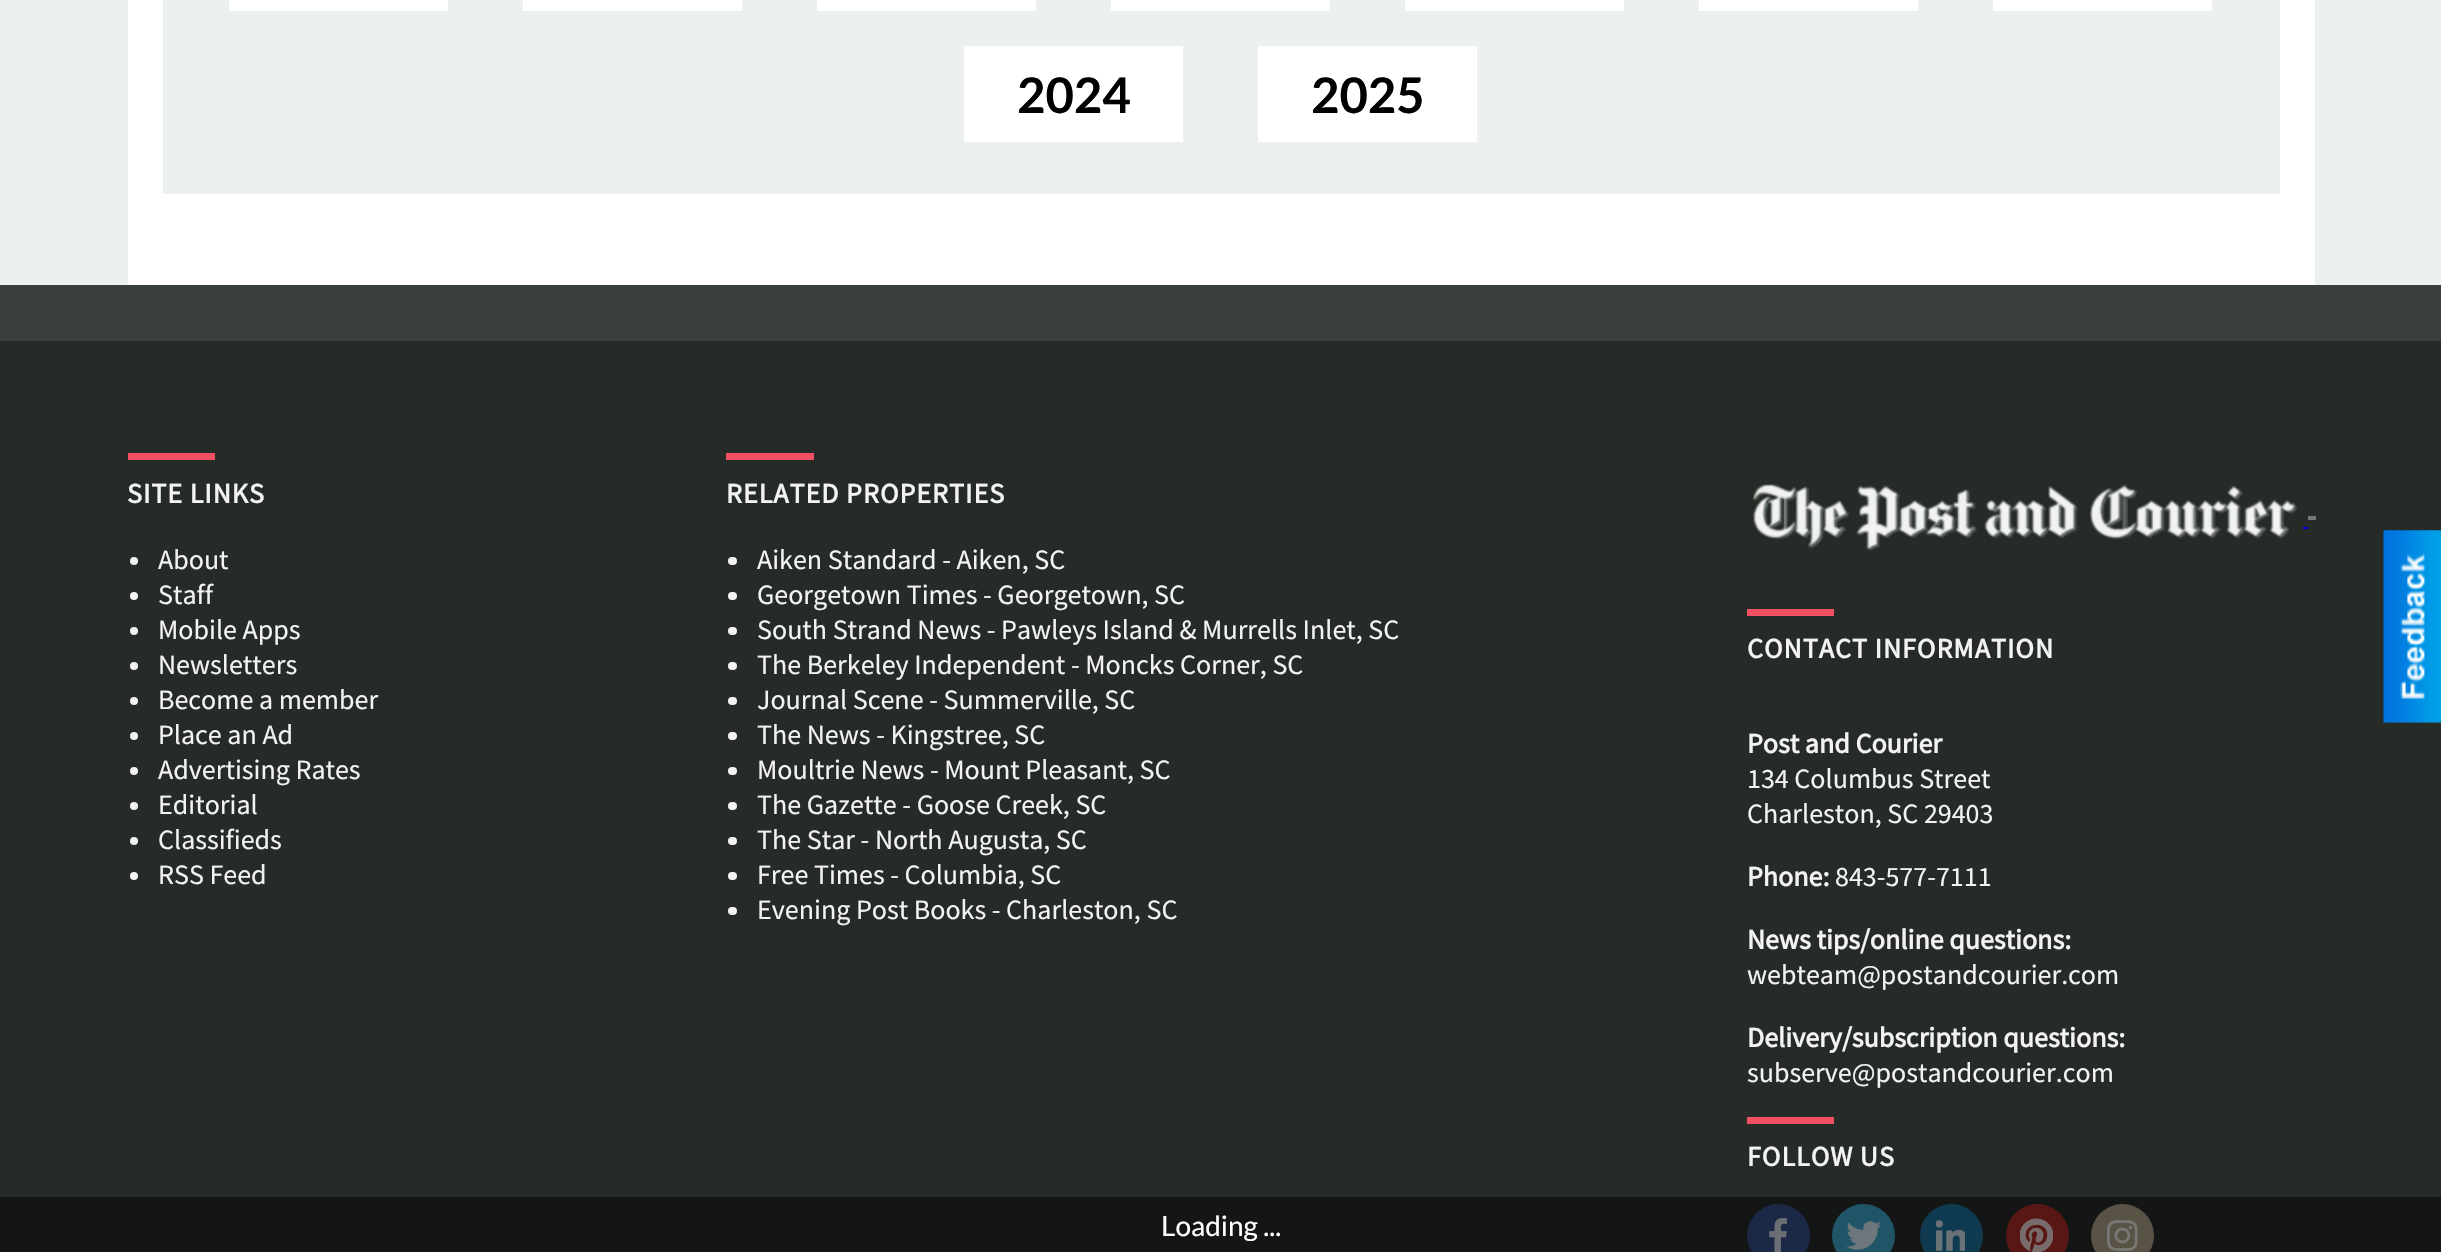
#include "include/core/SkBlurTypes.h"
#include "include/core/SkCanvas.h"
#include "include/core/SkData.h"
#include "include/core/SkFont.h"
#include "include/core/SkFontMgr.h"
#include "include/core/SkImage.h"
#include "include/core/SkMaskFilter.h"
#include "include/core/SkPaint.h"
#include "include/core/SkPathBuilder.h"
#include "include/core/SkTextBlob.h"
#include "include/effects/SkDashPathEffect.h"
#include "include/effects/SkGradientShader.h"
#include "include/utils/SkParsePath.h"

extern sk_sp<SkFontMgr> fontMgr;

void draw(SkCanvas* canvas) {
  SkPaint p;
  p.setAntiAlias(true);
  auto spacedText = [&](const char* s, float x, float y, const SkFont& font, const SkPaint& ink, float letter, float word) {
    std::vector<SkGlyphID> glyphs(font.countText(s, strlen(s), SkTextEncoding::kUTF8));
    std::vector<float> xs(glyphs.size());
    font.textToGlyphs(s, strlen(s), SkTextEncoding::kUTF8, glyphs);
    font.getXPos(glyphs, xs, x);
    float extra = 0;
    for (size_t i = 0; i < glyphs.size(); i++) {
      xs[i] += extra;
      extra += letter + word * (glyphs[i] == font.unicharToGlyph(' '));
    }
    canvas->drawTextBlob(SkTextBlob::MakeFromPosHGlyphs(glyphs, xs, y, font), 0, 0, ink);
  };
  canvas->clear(SkColorSetRGB(236, 240, 241));
  p.setColor(SK_ColorWHITE);
  canvas->drawRect(SkRect::MakeLTRB(128, 0, 2315, 285), p);
  p.setColor(SkColorSetRGB(236, 240, 241));
  canvas->drawRect(SkRect::MakeLTRB(163, 0, 2280, 194), p);
  p.setColor(SK_ColorWHITE);
  canvas->drawRect(SkRect::MakeLTRB(229, 0, 448, 11), p);
  canvas->drawRect(SkRect::MakeLTRB(523, 0, 742, 11), p);
  canvas->drawRect(SkRect::MakeLTRB(817, 0, 1036, 11), p);
  canvas->drawRect(SkRect::MakeLTRB(1111, 0, 1330, 11), p);
  canvas->drawRect(SkRect::MakeLTRB(1405, 0, 1624, 11), p);
  canvas->drawRect(SkRect::MakeLTRB(1699, 0, 1918, 11), p);
  canvas->drawRect(SkRect::MakeLTRB(1993, 0, 2212, 11), p);
  canvas->drawRect(SkRect::MakeLTRB(964, 46, 1183, 142), p);
  canvas->drawRect(SkRect::MakeLTRB(1258, 46, 1477, 142), p);
  p.setColor(SkColorSetRGB(38, 43, 40));
  canvas->drawRect(SkRect::MakeLTRB(0, 341, 2441, 1197), p);
  p.setColor(SkColorSetRGB(19, 22, 20));
  canvas->drawRect(SkRect::MakeLTRB(0, 1197, 2441, 1252), p);
  p.setColor(SkColorSetRGB(57, 63, 60));
  canvas->drawRect(SkRect::MakeLTRB(0, 285, 2441, 341), p);
  p.setColor(SkColorSetRGB(241, 80, 98));
  canvas->drawRect(SkRect::MakeLTRB(128, 453, 215, 460), p);
  p.setColor(SkColorSetRGB(243, 244, 242));
  canvas->drawCircle(134, 561, 4, p);
  canvas->drawCircle(134, 596, 4, p);
  canvas->drawCircle(134, 631, 4, p);
  canvas->drawCircle(134, 666, 4, p);
  canvas->drawCircle(134, 701, 4, p);
  canvas->drawCircle(134, 736, 4, p);
  canvas->drawCircle(134, 771, 4, p);
  canvas->drawCircle(134, 806, 4, p);
  canvas->drawCircle(134, 841, 4, p);
  canvas->drawCircle(134, 876, 4, p);
  p.setColor(SkColorSetRGB(241, 80, 98));
  canvas->drawRect(SkRect::MakeLTRB(726, 453, 814, 460), p);
  p.setColor(SkColorSetRGB(243, 244, 242));
  canvas->drawRoundRect(SkRect::MakeLTRB(728, 557, 737, 565), 4, 4, p);
  canvas->drawRoundRect(SkRect::MakeLTRB(728, 592, 737, 600), 4, 4, p);
  canvas->drawRoundRect(SkRect::MakeLTRB(728, 627, 737, 635), 4, 4, p);
  canvas->drawRoundRect(SkRect::MakeLTRB(728, 662, 737, 670), 4, 4, p);
  canvas->drawRoundRect(SkRect::MakeLTRB(728, 697, 737, 705), 4, 4, p);
  canvas->drawRoundRect(SkRect::MakeLTRB(728, 732, 737, 740), 4, 4, p);
  canvas->drawRoundRect(SkRect::MakeLTRB(728, 767, 737, 775), 4, 4, p);
  canvas->drawRoundRect(SkRect::MakeLTRB(728, 802, 737, 810), 4, 4, p);
  canvas->drawRoundRect(SkRect::MakeLTRB(728, 837, 737, 845), 4, 4, p);
  canvas->drawRoundRect(SkRect::MakeLTRB(728, 872, 737, 880), 4, 4, p);
  canvas->drawRoundRect(SkRect::MakeLTRB(728, 907, 737, 915), 4, 4, p);
  canvas->drawImageRect(SkImages::DeferredFromEncodedData(SkData::MakeFromFileName("images/1.png")), SkRect::MakeLTRB(1752, 484, 2298, 551), SkSamplingOptions());
  p.setColor(SkColorSetRGB(122, 124, 123));
  canvas->drawRect(SkRect::MakeLTRB(2308, 516, 2316, 520), p);
  p.setColor(SkColorSetRGB(0, 0, 238));
  canvas->drawRect(SkRect::MakeLTRB(2303, 527, 2308, 529), p);
  p.setColor(SkColorSetRGB(241, 80, 98));
  canvas->drawRect(SkRect::MakeLTRB(1747, 609, 1834, 616), p);
  canvas->drawRect(SkRect::MakeLTRB(1747, 1117, 1834, 1124), p);
  p.setColor(SkColorSetRGB(27, 40, 70));
  canvas->drawCircle(1778.5f, 1235.5f, 31.5f, p);
  canvas->drawImageRect(SkImages::DeferredFromEncodedData(SkData::MakeFromFileName("images/2.png")), SkRect::MakeLTRB(1769, 1218, 1787, 1252), SkSamplingOptions());
  p.setColor(SkColorSetRGB(32, 85, 104));
  canvas->drawCircle(1863.5f, 1235.5f, 31.5f, p);
  canvas->drawImageRect(SkImages::DeferredFromEncodedData(SkData::MakeFromFileName("images/3.png")), SkRect::MakeLTRB(1846, 1221, 1881, 1250), SkSamplingOptions());
  p.setColor(SkColorSetRGB(15, 58, 79));
  canvas->drawCircle(1951.5f, 1235.5f, 31.5f, p);
  canvas->drawImageRect(SkImages::DeferredFromEncodedData(SkData::MakeFromFileName("images/4.png")), SkRect::MakeLTRB(1936, 1220, 1965, 1251), SkSamplingOptions());
  p.setColor(SkColorSetRGB(88, 23, 21));
  canvas->drawCircle(2037.5f, 1235.5f, 31.5f, p);
  canvas->drawImageRect(SkImages::DeferredFromEncodedData(SkData::MakeFromFileName("images/5.png")), SkRect::MakeLTRB(2020, 1218, 2053, 1252), SkSamplingOptions());
  p.setColor(SkColorSetRGB(89, 83, 69));
  canvas->drawCircle(2122.5f, 1235.5f, 31.5f, p);
  canvas->drawImageRect(SkImages::DeferredFromEncodedData(SkData::MakeFromFileName("images/6.png")), SkRect::MakeLTRB(2107, 1220, 2138, 1251), SkSamplingOptions());
  canvas->drawImageRect(SkImages::DeferredFromEncodedData(SkData::MakeFromFileName("images/7.png")), SkRect::MakeLTRB(2383, 530, 2441, 723), SkSamplingOptions());
  SkFont font1(fontMgr->matchFamilyStyle("Lato", SkFontStyle::Bold()), 49);
  font1.setSubpixel(true);
  p.setColor(SK_ColorBLACK);
  canvas->drawString("2024", 1017, 113, font1, p);
  canvas->drawString("2025", 1311, 113, font1, p);
  SkFont font2(fontMgr->matchFamilyStyle("Source Sans Pro", SkFontStyle::Bold()), 28);
  font2.setSubpixel(true);
  p.setColor(SkColorSetRGB(243, 244, 242));
  spacedText("SITE LINKS", 127, 503, font2, p, 1, 0);
  SkFont font3(fontMgr->matchFamilyStyle("Source Sans Pro", SkFontStyle::Normal()), 28);
  font3.setSubpixel(true);
  canvas->drawString("About", 158, 569, font3, p);
  canvas->drawString("Staff", 158, 604, font3, p);
  canvas->drawString("Mobile Apps", 158, 639, font3, p);
  canvas->drawString("Newsletters", 158, 674, font3, p);
  canvas->drawString("Become a member", 158, 709, font3, p);
  canvas->drawString("Place an Ad", 158, 744, font3, p);
  canvas->drawString("Advertising Rates", 158, 779, font3, p);
  canvas->drawString("Editorial", 158, 814, font3, p);
  canvas->drawString("Classifieds", 158, 849, font3, p);
  canvas->drawString("RSS Feed", 158, 884, font3, p);
  spacedText("RELATED PROPERTIES", 726, 503, font2, p, 1, 0);
  canvas->drawString("Aiken Standard - Aiken, SC", 757, 569, font3, p);
  canvas->drawString("Georgetown Times - Georgetown, SC", 757, 604, font3, p);
  canvas->drawString("South Strand News - Pawleys Island & Murrells Inlet, SC", 757, 639, font3, p);
  canvas->drawString("The Berkeley Independent - Moncks Corner, SC", 757, 674, font3, p);
  canvas->drawString("Journal Scene - Summerville, SC", 757, 709, font3, p);
  canvas->drawString("The News - Kingstree, SC", 757, 744, font3, p);
  canvas->drawString("Moultrie News - Mount Pleasant, SC", 757, 779, font3, p);
  canvas->drawString("The Gazette - Goose Creek, SC", 757, 814, font3, p);
  canvas->drawString("The Star - North Augusta, SC", 757, 849, font3, p);
  canvas->drawString("Free Times - Columbia, SC", 757, 884, font3, p);
  canvas->drawString("Evening Post Books - Charleston, SC", 757, 919, font3, p);
  spacedText("CONTACT INFORMATION", 1747, 658, font2, p, 1, 0);
  canvas->drawString("Post and Courier", 1747, 753, font2, p);
  canvas->drawString("134 Columbus Street", 1747, 788, font3, p);
  canvas->drawString("Charleston, SC 29403", 1747, 823, font3, p);
  canvas->drawString("Phone:", 1747, 886, font2, p);
  canvas->drawString("843-577-7111", 1835, 886, font3, p);
  canvas->drawString("News tips/online questions:", 1747, 949, font2, p);
  canvas->drawString("webteam@postandcourier.com", 1747, 984, font3, p);
  canvas->drawString("Delivery/subscription questions:", 1747, 1047, font2, p);
  canvas->drawString("subserve@postandcourier.com", 1747, 1082, font3, p);
  spacedText("FOLLOW US", 1747, 1166, font2, p, 1, 0);
  SkFont font4(fontMgr->matchFamilyStyle("Lato", SkFontStyle::Normal()), 28);
  font4.setSubpixel(true);
  p.setColor(SK_ColorWHITE);
  canvas->drawString("Loading ...", 1161, 1236, font4, p);
}
